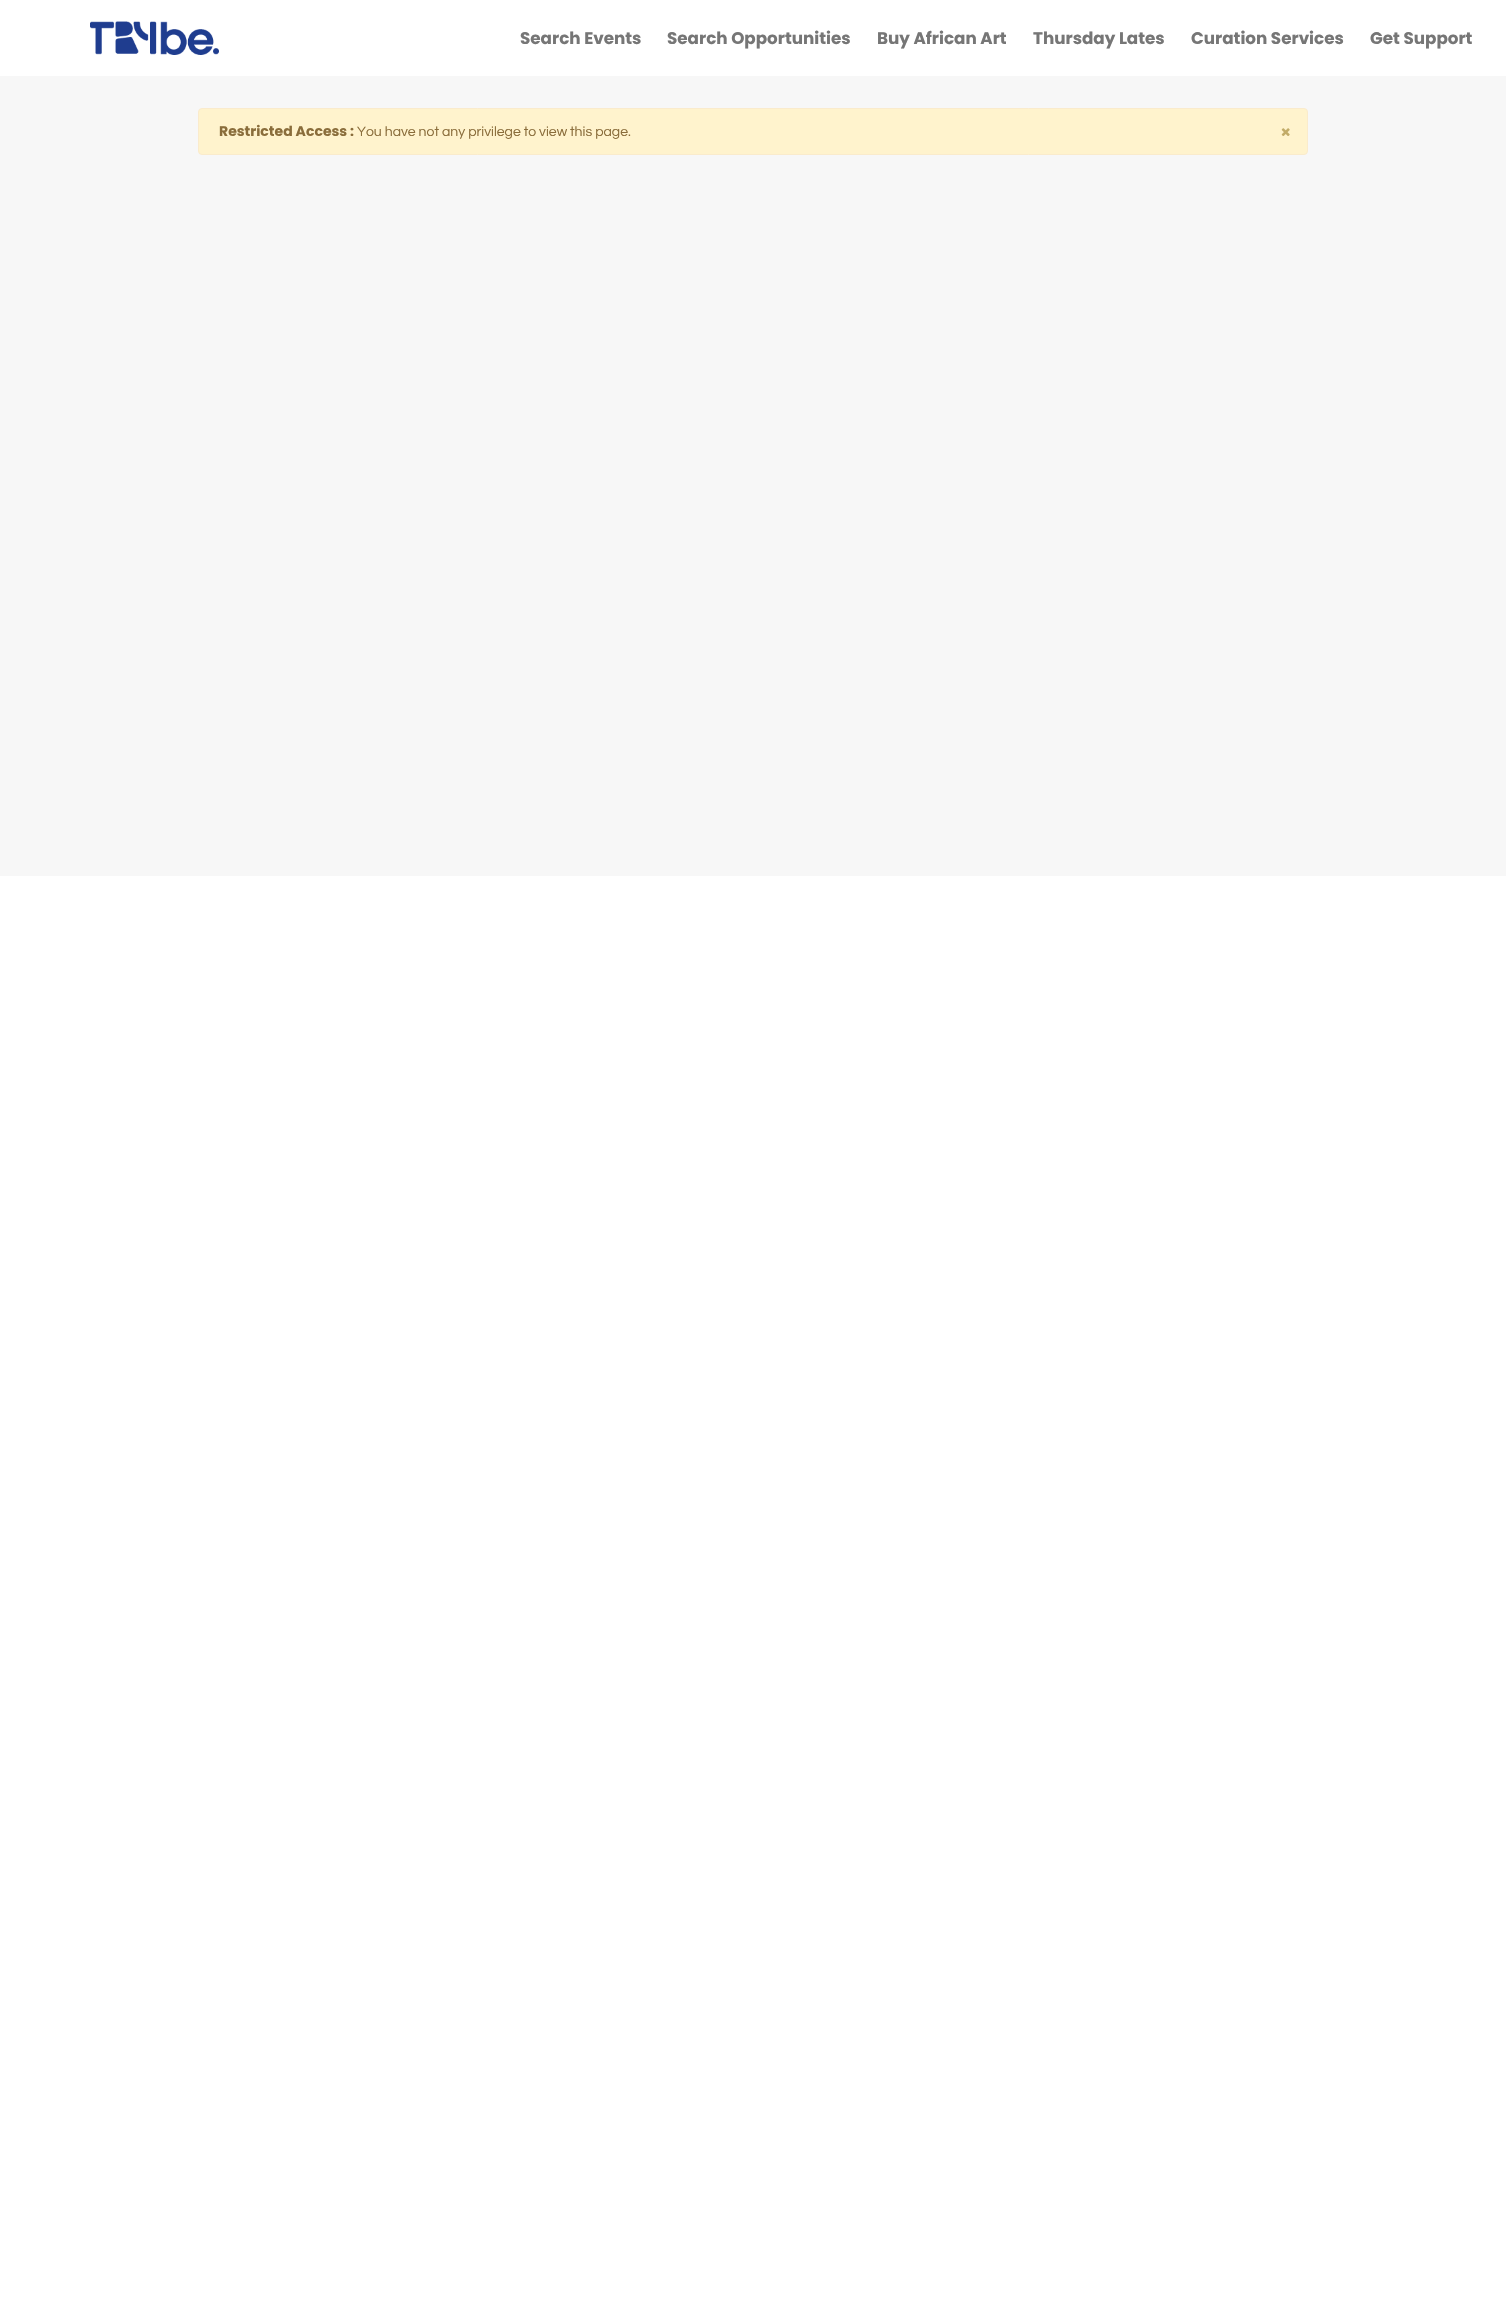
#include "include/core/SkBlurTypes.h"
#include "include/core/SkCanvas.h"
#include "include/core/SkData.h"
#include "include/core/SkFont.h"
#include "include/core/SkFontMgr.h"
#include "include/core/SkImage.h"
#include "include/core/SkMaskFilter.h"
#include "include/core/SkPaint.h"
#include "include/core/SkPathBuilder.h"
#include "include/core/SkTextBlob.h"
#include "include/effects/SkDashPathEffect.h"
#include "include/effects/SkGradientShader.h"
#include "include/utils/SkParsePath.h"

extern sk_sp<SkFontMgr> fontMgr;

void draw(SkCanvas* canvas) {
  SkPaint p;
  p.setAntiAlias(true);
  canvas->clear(SK_ColorWHITE);
  canvas->drawImageRect(SkImages::DeferredFromEncodedData(SkData::MakeFromFileName("images/1.png")), SkRect::MakeLTRB(90, 21, 219, 55), SkSamplingOptions());
  p.setColor(SkColorSetRGB(247, 247, 247));
  canvas->drawRect(SkRect::MakeLTRB(0, 76, 1506, 876), p);
  p.setColor(SkColorSetRGB(255, 243, 205));
  canvas->drawRoundRect(SkRect::MakeLTRB(198.5f, 108.5f, 1307.5f, 154.5f), 3.5f, 3.5f, p);
  p.setStyle(SkPaint::kStroke_Style);
  p.setStrokeWidth(1);
  p.setColor(SkColorSetRGB(250, 235, 204));
  canvas->drawRoundRect(SkRect::MakeLTRB(198.5f, 108.5f, 1307.5f, 154.5f), 3.5f, 3.5f, p);
  canvas->drawImageRect(SkImages::DeferredFromEncodedData(SkData::MakeFromFileName("images/2.png")), SkRect::MakeLTRB(1281, 128, 1290, 136), SkSamplingOptions());
  SkFont font1(fontMgr->matchFamilyStyle("Poppins", SkFontStyle::Bold()), 16.75f);
  font1.setSubpixel(true);
  p.setStyle(SkPaint::kFill_Style);
  p.setColor(SkColorSetRGB(118, 118, 118));
  canvas->drawString("Search Events", 520, 44, font1, p);
  canvas->drawString("Search Opportunities", 667, 44, font1, p);
  canvas->drawString("Buy African Art", 877, 44, font1, p);
  canvas->drawString("Thursday Lates", 1033, 44, font1, p);
  canvas->drawString("Curation Services", 1191, 44, font1, p);
  canvas->drawString("Get Support", 1370, 44, font1, p);
  SkFont font2(fontMgr->matchFamilyStyle("Poppins", SkFontStyle::Bold()), 14);
  font2.setSubpixel(true);
  p.setColor(SkColorSetRGB(138, 109, 59));
  canvas->drawString("Restricted Access :", 219, 136, font2, p);
  SkFont font3(fontMgr->matchFamilyStyle("Questrial", SkFontStyle::Normal()), 14);
  font3.setSubpixel(true);
  canvas->drawString("You have not any privilege to view this page.", 357, 136, font3, p);
}
